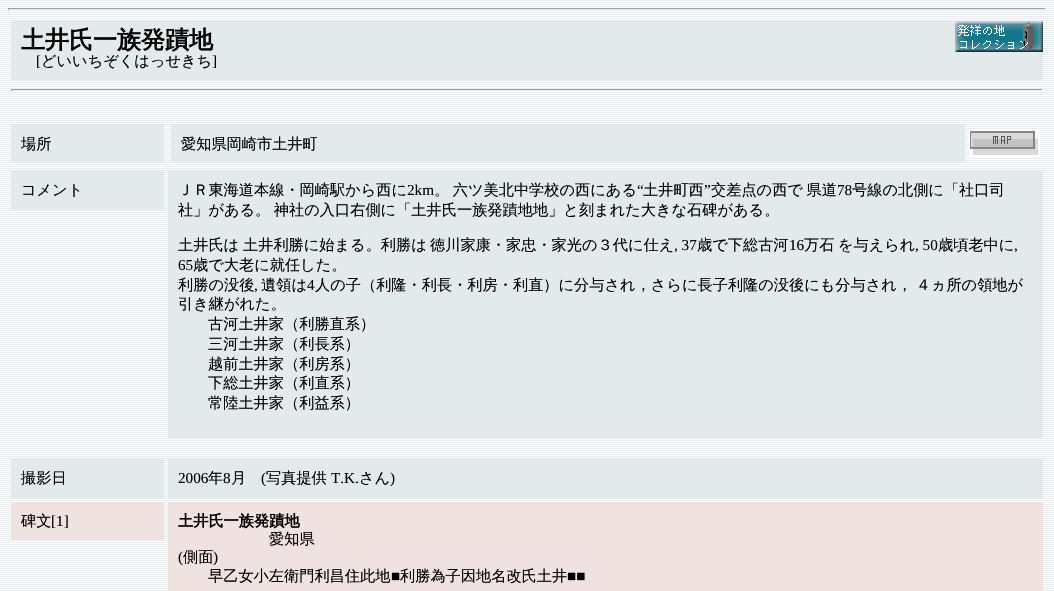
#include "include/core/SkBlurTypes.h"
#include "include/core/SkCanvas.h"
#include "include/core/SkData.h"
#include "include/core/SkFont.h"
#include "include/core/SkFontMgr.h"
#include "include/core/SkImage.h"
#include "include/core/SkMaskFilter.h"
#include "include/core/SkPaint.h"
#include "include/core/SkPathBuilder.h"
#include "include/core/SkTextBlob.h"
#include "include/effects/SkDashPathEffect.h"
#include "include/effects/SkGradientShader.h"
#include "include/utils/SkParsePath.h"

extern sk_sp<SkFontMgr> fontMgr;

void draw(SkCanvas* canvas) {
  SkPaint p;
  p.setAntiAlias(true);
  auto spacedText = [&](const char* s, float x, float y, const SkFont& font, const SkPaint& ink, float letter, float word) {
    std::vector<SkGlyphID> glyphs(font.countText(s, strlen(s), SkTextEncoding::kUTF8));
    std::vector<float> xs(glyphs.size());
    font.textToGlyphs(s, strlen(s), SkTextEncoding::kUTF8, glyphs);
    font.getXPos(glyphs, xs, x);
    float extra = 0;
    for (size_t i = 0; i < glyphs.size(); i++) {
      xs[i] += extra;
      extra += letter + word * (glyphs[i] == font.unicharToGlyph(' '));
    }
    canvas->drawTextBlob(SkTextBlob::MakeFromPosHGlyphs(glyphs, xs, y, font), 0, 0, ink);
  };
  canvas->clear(SK_ColorWHITE);
  canvas->drawImageRect(SkImages::DeferredFromEncodedData(SkData::MakeFromFileName("images/1.png")), SkRect::MakeLTRB(0, 0, 1054, 591), SkSamplingOptions());
  p.setColor(SkColorSetRGB(159, 159, 159));
  canvas->drawRect(SkRect::MakeLTRB(8, 8, 1046, 9), p);
  p.setColor(SkColorSetRGB(238, 238, 238));
  canvas->drawRect(SkRect::MakeLTRB(1045, 8, 1046, 10), p);
  canvas->drawRect(SkRect::MakeLTRB(8, 9, 1046, 10), p);
  p.setColor(SkColorSetRGB(159, 159, 159));
  canvas->drawRect(SkRect::MakeLTRB(8, 8, 9, 10), p);
  p.setColor(SkColorSetRGB(227, 234, 236));
  canvas->drawRect(SkRect::MakeLTRB(11, 21, 1043, 81), p);
  canvas->drawImageRect(SkImages::DeferredFromEncodedData(SkData::MakeFromFileName("images/2.png")), SkRect::MakeLTRB(955, 21, 1043, 52), SkSamplingOptions());
  p.setColor(SkColorSetRGB(159, 159, 159));
  canvas->drawRect(SkRect::MakeLTRB(11, 89, 1043, 90), p);
  p.setColor(SkColorSetRGB(238, 238, 238));
  canvas->drawRect(SkRect::MakeLTRB(1042, 89, 1043, 91), p);
  canvas->drawRect(SkRect::MakeLTRB(11, 90, 1043, 91), p);
  p.setColor(SkColorSetRGB(159, 159, 159));
  canvas->drawRect(SkRect::MakeLTRB(11, 89, 12, 91), p);
  p.setColor(SkColorSetRGB(227, 234, 236));
  canvas->drawRect(SkRect::MakeLTRB(11, 124, 164, 163), p);
  canvas->drawRect(SkRect::MakeLTRB(171, 124, 965, 163), p);
  canvas->drawImageRect(SkImages::DeferredFromEncodedData(SkData::MakeFromFileName("images/3.png")), SkRect::MakeLTRB(969, 130, 1040, 157), SkSamplingOptions());
  canvas->drawRect(SkRect::MakeLTRB(11, 170, 164, 210), p);
  canvas->drawRect(SkRect::MakeLTRB(168, 170, 1043, 438), p);
  canvas->drawRect(SkRect::MakeLTRB(11, 458, 164, 498), p);
  canvas->drawRect(SkRect::MakeLTRB(168, 458, 1043, 498), p);
  p.setColor(SkColorSetRGB(240, 226, 225));
  canvas->drawRect(SkRect::MakeLTRB(11, 502, 164, 540), p);
  canvas->drawRect(SkRect::MakeLTRB(168, 502, 1043, 591), p);
  SkFont font1(fontMgr->matchFamilyStyle("WenQuanYi Zen Hei", SkFontStyle::Bold()), 24);
  font1.setSubpixel(true);
  p.setColor(SK_ColorBLACK);
  canvas->drawString("土井氏一族発蹟地", 21, 48, font1, p);
  SkFont font2(fontMgr->matchFamilyStyle("Liberation Serif", SkFontStyle::Normal()), 15.2f);
  font2.setSubpixel(true);
  canvas->drawString("[", 36, 66, font2, p);
  SkFont font3(fontMgr->matchFamilyStyle("WenQuanYi Zen Hei", SkFontStyle(500, SkFontStyle::kNormal_Width, SkFontStyle::kUpright_Slant)), 15.2f);
  font3.setSubpixel(true);
  canvas->drawString("どいいちぞくはっせきち", 41, 66, font3, p);
  canvas->drawString("]", 212, 66, font2, p);
  canvas->drawString("場所", 21, 149, font3, p);
  canvas->drawString("愛知県岡崎市土井町", 181, 149, font3, p);
  canvas->drawString("コメント", 21, 195, font3, p);
  canvas->drawString("ＪＲ東海道本線・岡崎駅から西に", 178, 195, font3, p);
  canvas->drawString("2km", 407, 195, font2, p);
  spacedText("。 六ツ美北中学校の西にある", 434, 195, font3, p, 0, -1);
  canvas->drawString("“", 637, 195, font2, p);
  canvas->drawString("土井町西", 643, 195, font3, p);
  canvas->drawString("”", 704, 195, font2, p);
  spacedText("交差点の西で 県道", 711, 195, font3, p, 0, -1);
  canvas->drawString("78", 837, 195, font2, p);
  canvas->drawString("号線の北側に「社口司", 852, 195, font3, p);
  spacedText("社」がある。 神社の入口右側に「土井氏一族発蹟地地」と刻まれた大きな石碑がある。", 178, 215, font3, p, 0, -1);
  canvas->drawString("土井氏は", 178, 250, font3, p);
  canvas->drawString("土井利勝に始まる。利勝は", 243, 250, font3, p);
  canvas->drawString("徳川家康・家忠・家光の３代に仕え", 430, 250, font3, p);
  canvas->drawString(", 37", 674, 250, font2, p);
  canvas->drawString("歳で下総古河", 697, 250, font3, p);
  canvas->drawString("16", 789, 250, font2, p);
  canvas->drawString("万石", 804, 250, font3, p);
  canvas->drawString("を与えられ", 838, 250, font3, p);
  canvas->drawString(", 50", 915, 250, font2, p);
  canvas->drawString("歳頃老中に", 938, 250, font3, p);
  canvas->drawString(",", 1014, 250, font2, p);
  canvas->drawString("65", 178, 270, font2, p);
  canvas->drawString("歳で大老に就任した。", 193, 270, font3, p);
  canvas->drawString("利勝の没後", 178, 290, font3, p);
  canvas->drawString("遺領は", 261, 290, font3, p);
  canvas->drawString("4", 307, 290, font2, p);
  spacedText("人の子（利隆・利長・利房・利直）に分与され，さらに長子利隆の没後にも分与され， ４ヵ所の領地が", 315, 290, font3, p, 0, -1);
  canvas->drawString(",", 254, 290, font2, p);
  canvas->drawString("引き継がれた。", 178, 309, font3, p);
  canvas->drawString("古河土井家（利勝直系）", 208, 329, font3, p);
  canvas->drawString("三河土井家（利長系）", 208, 349, font3, p);
  canvas->drawString("越前土井家（利房系）", 208, 369, font3, p);
  canvas->drawString("下総土井家（利直系）", 208, 388, font3, p);
  canvas->drawString("常陸土井家（利益系）", 208, 408, font3, p);
  canvas->drawString("撮影日", 21, 483, font3, p);
  canvas->drawString("2006", 178, 483, font2, p);
  canvas->drawString("年", 208, 483, font3, p);
  canvas->drawString("8", 223, 483, font2, p);
  canvas->drawString("月", 231, 483, font3, p);
  canvas->drawString("(", 261, 483, font2, p);
  canvas->drawString("写真提供", 266, 483, font3, p);
  canvas->drawString("T.K.", 331, 483, font2, p);
  canvas->drawString("さん", 359, 483, font3, p);
  canvas->drawString(")", 390, 483, font2, p);
  canvas->drawString("碑文", 21, 526, font3, p);
  canvas->drawString("[1]", 51, 526, font2, p);
  SkFont font4(fontMgr->matchFamilyStyle("WenQuanYi Zen Hei", SkFontStyle::Bold()), 15.2f);
  font4.setSubpixel(true);
  canvas->drawString("土井氏一族発蹟地", 178, 526, font4, p);
  canvas->drawString("愛知県", 269, 544, font3, p);
  canvas->drawString("(", 178, 562, font2, p);
  canvas->drawString("側面", 183, 562, font3, p);
  canvas->drawString(")", 213, 562, font2, p);
  canvas->drawString("早乙女小左衛門利昌住此地", 208, 581, font3, p);
  canvas->drawString("■", 391, 581, font2, p);
  canvas->drawString("利勝為子因地名改氏土井", 400, 581, font3, p);
  canvas->drawString("■■", 567, 581, font2, p);
}
